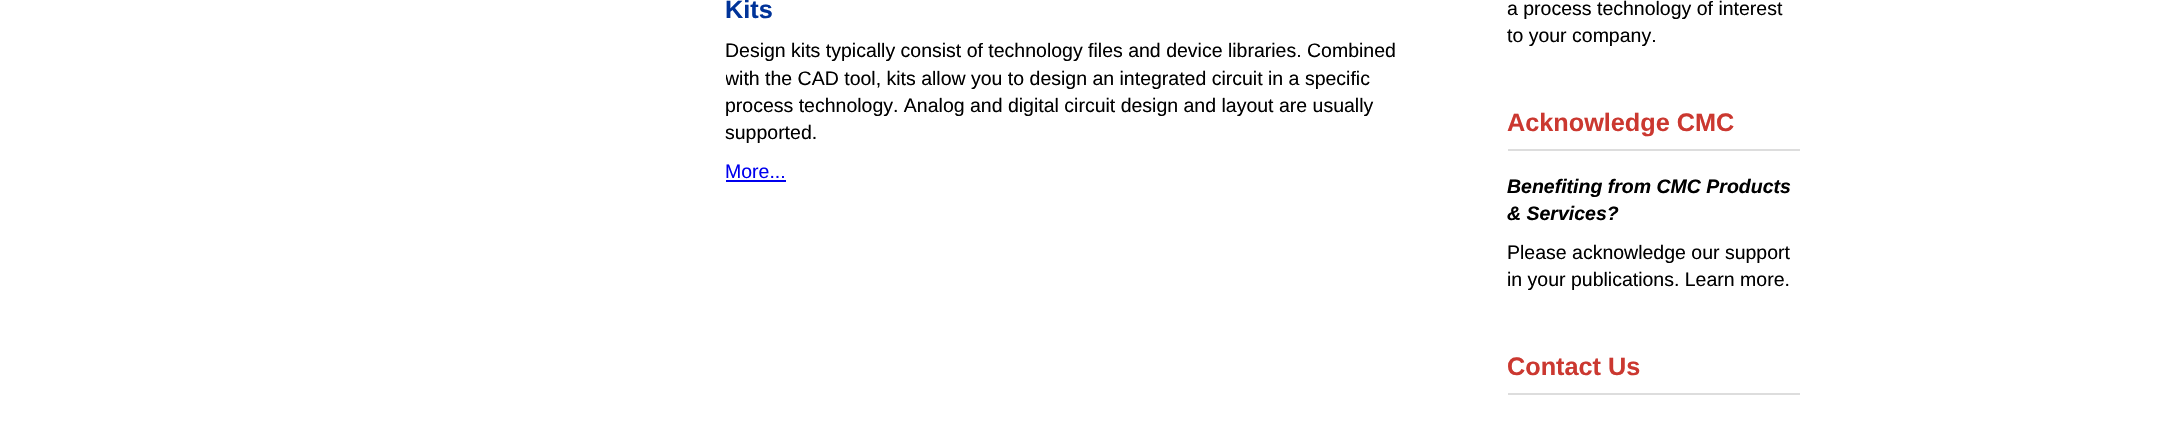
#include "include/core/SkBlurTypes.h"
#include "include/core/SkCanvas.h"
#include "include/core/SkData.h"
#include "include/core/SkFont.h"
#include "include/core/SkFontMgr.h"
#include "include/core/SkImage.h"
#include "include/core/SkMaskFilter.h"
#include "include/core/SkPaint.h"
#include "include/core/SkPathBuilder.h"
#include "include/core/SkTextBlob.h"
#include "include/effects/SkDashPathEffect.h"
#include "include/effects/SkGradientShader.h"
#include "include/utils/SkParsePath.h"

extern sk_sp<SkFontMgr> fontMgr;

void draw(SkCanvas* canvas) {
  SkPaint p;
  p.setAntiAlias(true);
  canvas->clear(SK_ColorWHITE);
  p.setColor(SkColorSetRGB(0, 0, 238));
  canvas->drawRect(SkRect::MakeLTRB(726, 180, 786, 182), p);
  p.setColor(SkColorSetRGB(221, 221, 221));
  canvas->drawRect(SkRect::MakeLTRB(1508, 149, 1800, 151), p);
  canvas->drawRect(SkRect::MakeLTRB(1508, 393, 1800, 395), p);
  SkFont font1(fontMgr->matchFamilyStyle("Liberation Sans", SkFontStyle::Bold()), 25.25f);
  font1.setSubpixel(true);
  p.setColor(SkColorSetRGB(0, 51, 153));
  canvas->drawString("Kits", 725, 18, font1, p);
  SkFont font2(fontMgr->matchFamilyStyle("Liberation Sans", SkFontStyle::Normal()), 19.5f);
  font2.setSubpixel(true);
  p.setColor(SK_ColorBLACK);
  canvas->drawString("Design kits typically consist of technology files and device libraries. Combined", 725, 57, font2, p);
  canvas->save();
  canvas->clipRect(SkRect::MakeLTRB(726, 0, 1427, 198));
  canvas->drawString("with the CAD tool, kits allow you to design an integrated circuit in a specific", 725, 85, font2, p);
  canvas->restore();
  canvas->drawString("process technology. Analog and digital circuit design and layout are usually", 725, 112, font2, p);
  canvas->drawString("supported.", 725, 139, font2, p);
  p.setColor(SkColorSetRGB(0, 0, 238));
  canvas->drawString("More...", 725, 178, font2, p);
  p.setColor(SK_ColorBLACK);
  canvas->drawString("a process technology of interest", 1507, 15, font2, p);
  canvas->drawString("to your company.", 1507, 42, font2, p);
  p.setColor(SkColorSetRGB(203, 56, 48));
  canvas->drawString("Acknowledge CMC", 1507, 131, font1, p);
  SkFont font3(fontMgr->matchFamilyStyle("Liberation Sans", SkFontStyle::BoldItalic()), 19.5f);
  font3.setSubpixel(true);
  p.setColor(SK_ColorBLACK);
  canvas->drawString("Benefiting from CMC Products", 1507, 193, font3, p);
  canvas->drawString("& Services?", 1507, 220, font3, p);
  canvas->drawString("Please acknowledge our support", 1507, 259, font2, p);
  canvas->drawString("in your publications. Learn more.", 1507, 286, font2, p);
  p.setColor(SkColorSetRGB(203, 56, 48));
  canvas->drawString("Contact Us", 1507, 375, font1, p);
}
